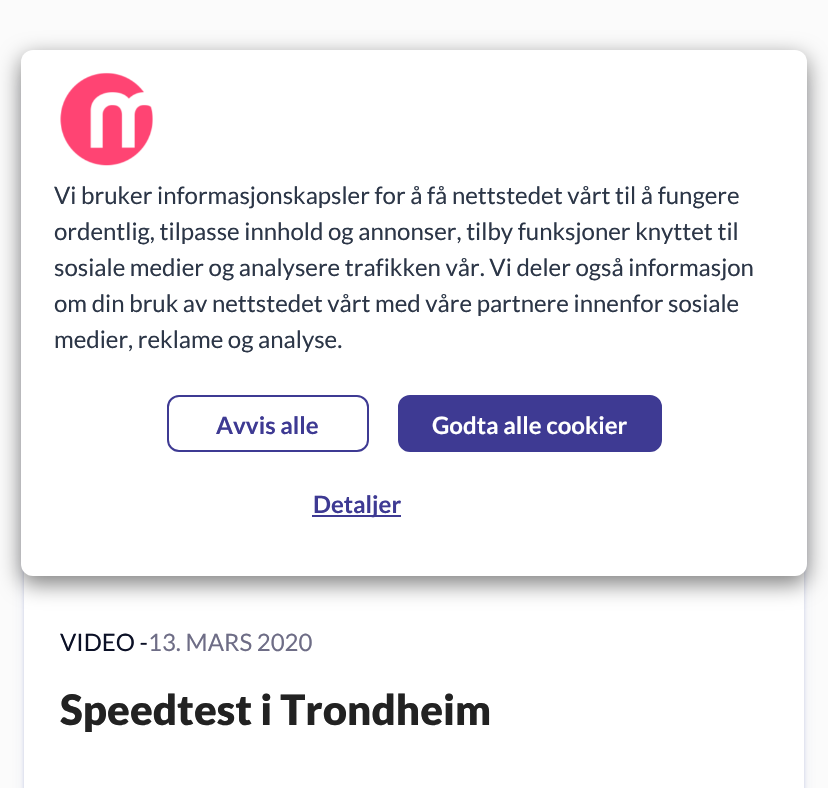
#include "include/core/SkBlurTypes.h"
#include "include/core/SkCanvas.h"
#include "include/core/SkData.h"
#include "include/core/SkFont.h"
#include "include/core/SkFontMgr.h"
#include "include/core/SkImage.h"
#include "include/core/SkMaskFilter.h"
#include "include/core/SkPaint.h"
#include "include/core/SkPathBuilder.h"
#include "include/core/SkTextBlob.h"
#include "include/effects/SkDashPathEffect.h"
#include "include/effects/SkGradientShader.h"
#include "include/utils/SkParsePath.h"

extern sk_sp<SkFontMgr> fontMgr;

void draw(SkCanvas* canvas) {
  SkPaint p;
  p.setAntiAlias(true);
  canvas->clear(SkColorSetRGB(251, 251, 251));
  p.setColor(SkColorSetARGB(36, 49, 73, 164));
  p.setMaskFilter(SkMaskFilter::MakeBlur(kNormal_SkBlurStyle, 1.5f));
  canvas->drawRoundRect(SkRect::MakeLTRB(24, 72, 804, 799), 6, 6, p);
  p.setMaskFilter(nullptr);
  p.setColor(SkColorSetARGB(26, 49, 73, 164));
  p.setMaskFilter(SkMaskFilter::MakeBlur(kNormal_SkBlurStyle, 2));
  canvas->drawRoundRect(SkRect::MakeLTRB(24, 72, 804, 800), 6, 6, p);
  p.setMaskFilter(nullptr);
  p.setColor(SkColorSetARGB(20, 49, 73, 164));
  p.setMaskFilter(SkMaskFilter::MakeBlur(kNormal_SkBlurStyle, 7.5f));
  canvas->drawRoundRect(SkRect::MakeLTRB(24, 81, 804, 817), 6, 6, p);
  p.setMaskFilter(nullptr);
  p.setColor(SK_ColorWHITE);
  canvas->drawRect(SkRect::MakeLTRB(24, 571, 804, 788), p);
  p.setColor(SkColorSetARGB(128, 0, 0, 0));
  p.setMaskFilter(SkMaskFilter::MakeBlur(kNormal_SkBlurStyle, 11));
  canvas->drawRoundRect(SkRect::MakeLTRB(21, 57, 807, 584), 12, 12, p);
  p.setMaskFilter(nullptr);
  p.setColor(SK_ColorWHITE);
  canvas->drawRoundRect(SkRect::MakeLTRB(21, 50, 807, 576), 12, 12, p);
  canvas->drawImageRect(SkImages::DeferredFromEncodedData(SkData::MakeFromFileName("images/1.png")), SkRect::MakeLTRB(60, 72, 153, 166), SkSamplingOptions());
  p.setStyle(SkPaint::kStroke_Style);
  p.setStrokeWidth(2);
  p.setColor(SkColorSetRGB(62, 58, 147));
  canvas->drawRoundRect(SkRect::MakeLTRB(168, 396, 368, 451), 11, 11, p);
  p.setStyle(SkPaint::kFill_Style);
  canvas->drawRoundRect(SkRect::MakeLTRB(399, 396, 661, 451), 11, 11, p);
  p.setStyle(SkPaint::kStroke_Style);
  canvas->drawRoundRect(SkRect::MakeLTRB(399, 396, 661, 451), 11, 11, p);
  p.setStyle(SkPaint::kFill_Style);
  canvas->drawRect(SkRect::MakeLTRB(312, 515, 401, 517), p);
  SkFont font1(fontMgr->matchFamilyStyle("Lato", SkFontStyle::Normal()), 24);
  font1.setSubpixel(true);
  p.setColor(SkColorSetRGB(44, 54, 71));
  canvas->drawString("Vi bruker informasjonskapsler for å få nettstedet vårt til å fungere", 54, 204, font1, p);
  canvas->drawString("ordentlig, tilpasse innhold og annonser, tilby funksjoner knyttet til", 54, 240, font1, p);
  canvas->drawString("sosiale medier og analysere trafikken vår. Vi deler også informasjon", 54, 276, font1, p);
  canvas->drawString("om din bruk av nettstedet vårt med våre partnere innenfor sosiale", 54, 312, font1, p);
  canvas->drawString("medier, reklame og analyse.", 54, 348, font1, p);
  SkFont font2(fontMgr->matchFamilyStyle("Lato", SkFontStyle::Bold()), 24);
  font2.setSubpixel(true);
  p.setColor(SkColorSetRGB(62, 58, 147));
  canvas->drawString("Avvis alle", 216, 434, font2, p);
  p.setColor(SK_ColorWHITE);
  canvas->drawString("Godta alle cookier", 432, 434, font2, p);
  p.setColor(SkColorSetRGB(62, 58, 147));
  canvas->drawString("Detaljer", 313, 513, font2, p);
  p.setColor(SkColorSetRGB(11, 16, 38));
  canvas->drawString("VIDEO -", 60, 651, font1, p);
  p.setColor(SkColorSetRGB(110, 109, 134));
  canvas->drawString("13. MARS 2020", 148, 651, font1, p);
  SkFont font3(fontMgr->matchFamilyStyle("Lato", SkFontStyle(900, SkFontStyle::kNormal_Width, SkFontStyle::kUpright_Slant)), 42);
  font3.setSubpixel(true);
  p.setColor(SkColorSetRGB(34, 34, 34));
  canvas->drawString("Speedtest i Trondheim", 60, 725, font3, p);
}
